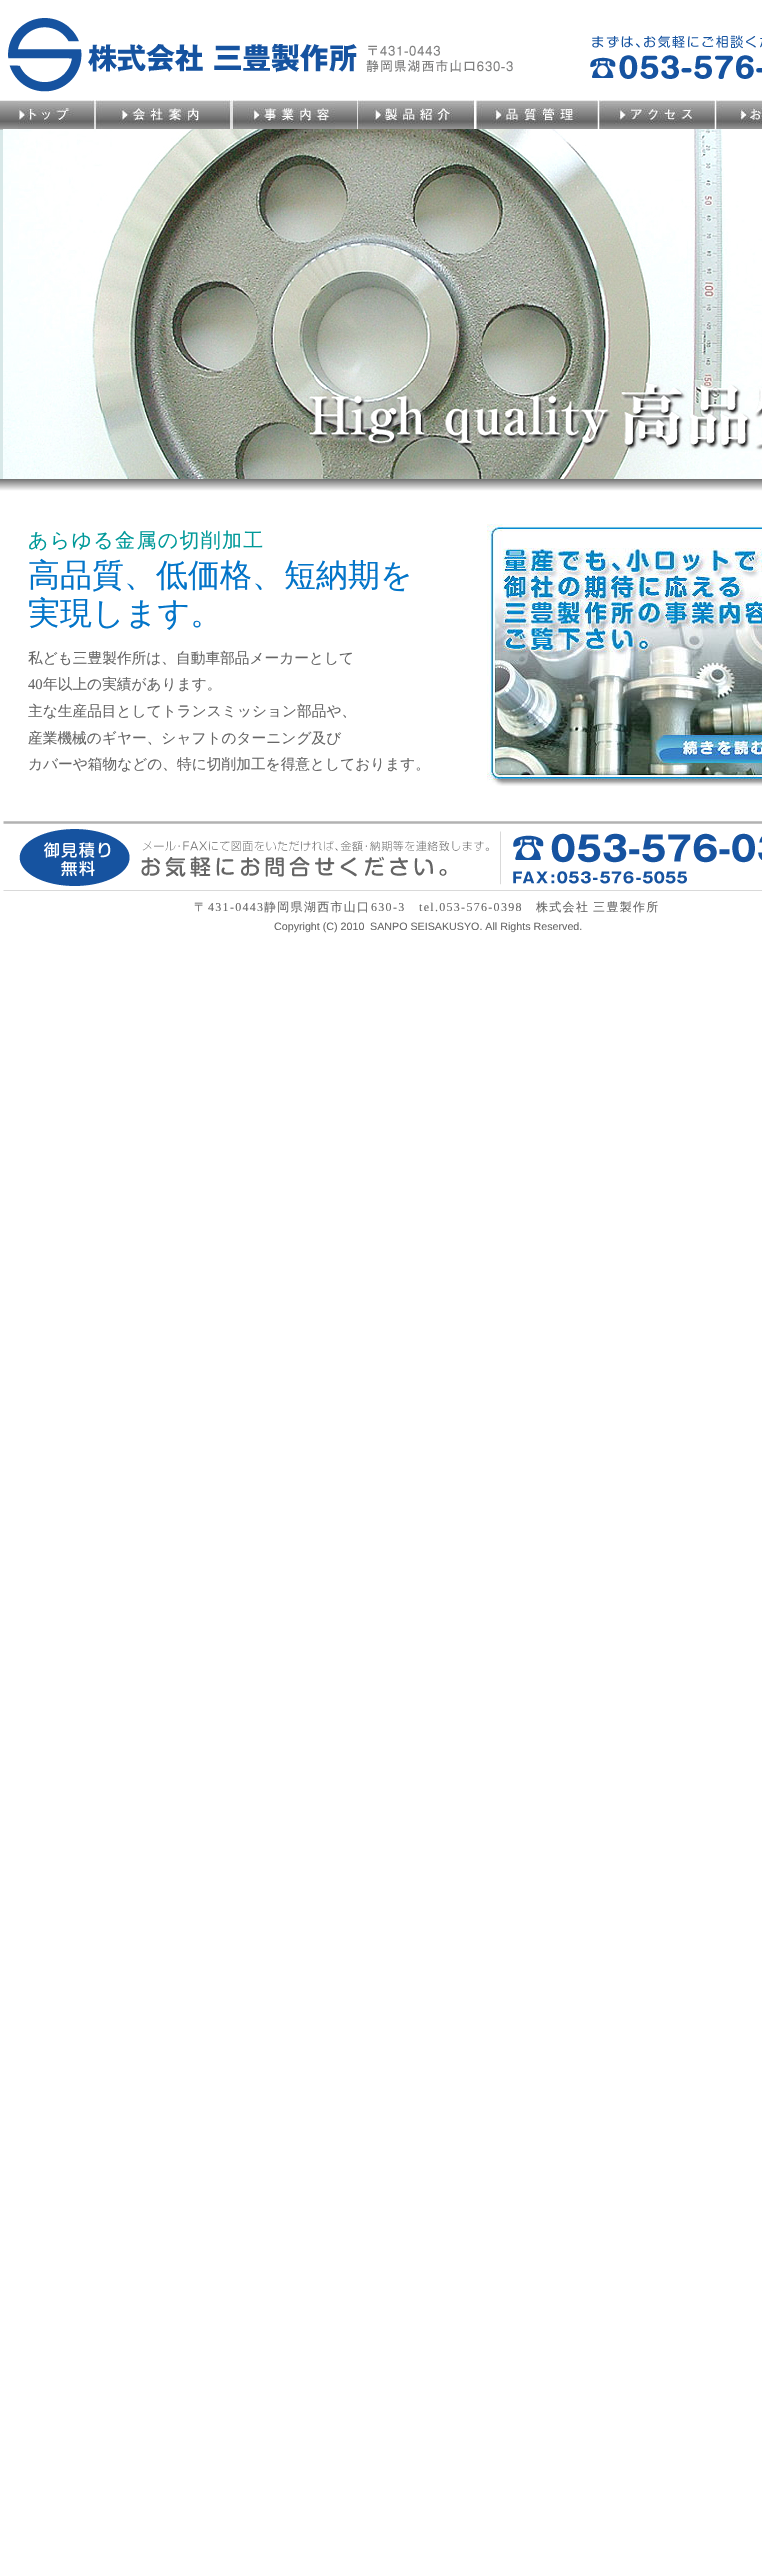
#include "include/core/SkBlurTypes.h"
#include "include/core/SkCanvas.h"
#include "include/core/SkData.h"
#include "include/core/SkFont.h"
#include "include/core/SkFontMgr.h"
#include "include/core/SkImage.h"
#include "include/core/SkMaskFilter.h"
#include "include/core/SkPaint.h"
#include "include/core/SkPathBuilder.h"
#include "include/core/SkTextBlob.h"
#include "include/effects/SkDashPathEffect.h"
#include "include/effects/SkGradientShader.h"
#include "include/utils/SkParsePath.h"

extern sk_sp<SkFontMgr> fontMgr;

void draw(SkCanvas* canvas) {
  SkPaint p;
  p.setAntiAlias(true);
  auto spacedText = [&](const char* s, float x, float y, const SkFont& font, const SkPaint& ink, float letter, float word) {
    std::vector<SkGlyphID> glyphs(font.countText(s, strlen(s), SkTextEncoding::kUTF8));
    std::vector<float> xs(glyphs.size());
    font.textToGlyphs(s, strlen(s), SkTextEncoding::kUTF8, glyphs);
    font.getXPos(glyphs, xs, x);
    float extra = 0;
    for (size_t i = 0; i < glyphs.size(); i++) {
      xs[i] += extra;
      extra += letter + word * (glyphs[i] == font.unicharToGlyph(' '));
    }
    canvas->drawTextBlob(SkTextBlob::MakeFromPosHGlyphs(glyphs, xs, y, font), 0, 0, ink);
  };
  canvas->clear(SK_ColorWHITE);
  canvas->drawImageRect(SkImages::DeferredFromEncodedData(SkData::MakeFromFileName("images/1.png")), SkRect::MakeLTRB(0, 100, 762, 491), SkSamplingOptions());
  canvas->drawImageRect(SkImages::DeferredFromEncodedData(SkData::MakeFromFileName("images/2.png")), SkRect::MakeLTRB(8, 18, 762, 92), SkSamplingOptions());
  canvas->drawImageRect(SkImages::DeferredFromEncodedData(SkData::MakeFromFileName("images/3.png")), SkRect::MakeLTRB(18, 100, 95, 129), SkSamplingOptions());
  canvas->drawImageRect(SkImages::DeferredFromEncodedData(SkData::MakeFromFileName("images/4.png")), SkRect::MakeLTRB(95, 100, 231, 129), SkSamplingOptions());
  canvas->drawImageRect(SkImages::DeferredFromEncodedData(SkData::MakeFromFileName("images/5.png")), SkRect::MakeLTRB(231, 100, 335, 129), SkSamplingOptions());
  canvas->drawImageRect(SkImages::DeferredFromEncodedData(SkData::MakeFromFileName("images/6.png")), SkRect::MakeLTRB(357, 100, 475, 129), SkSamplingOptions());
  canvas->drawImageRect(SkImages::DeferredFromEncodedData(SkData::MakeFromFileName("images/7.png")), SkRect::MakeLTRB(475, 100, 598, 129), SkSamplingOptions());
  canvas->drawImageRect(SkImages::DeferredFromEncodedData(SkData::MakeFromFileName("images/8.png")), SkRect::MakeLTRB(598, 100, 715, 129), SkSamplingOptions());
  canvas->drawImageRect(SkImages::DeferredFromEncodedData(SkData::MakeFromFileName("images/9.png")), SkRect::MakeLTRB(715, 100, 762, 129), SkSamplingOptions());
  canvas->drawImageRect(SkImages::DeferredFromEncodedData(SkData::MakeFromFileName("images/10.png")), SkRect::MakeLTRB(3, 129, 762, 479), SkSamplingOptions());
  canvas->drawImageRect(SkImages::DeferredFromEncodedData(SkData::MakeFromFileName("images/11.png")), SkRect::MakeLTRB(487, 524, 762, 786), SkSamplingOptions());
  canvas->drawImageRect(SkImages::DeferredFromEncodedData(SkData::MakeFromFileName("images/12.png")), SkRect::MakeLTRB(3, 821, 762, 891), SkSamplingOptions());
  SkFont font1(fontMgr->matchFamilyStyle("WenQuanYi Zen Hei", SkFontStyle(500, SkFontStyle::kNormal_Width, SkFontStyle::kUpright_Slant)), 20);
  font1.setSubpixel(true);
  p.setColor(SkColorSetRGB(0, 153, 153));
  spacedText("あらゆる金属の切削加工", 28, 547, font1, p, 1.3f, 0);
  SkFont font2(fontMgr->matchFamilyStyle("WenQuanYi Zen Hei", SkFontStyle(500, SkFontStyle::kNormal_Width, SkFontStyle::kUpright_Slant)), 32);
  font2.setSubpixel(true);
  p.setColor(SkColorSetRGB(3, 117, 201));
  canvas->drawString("高品質、低価格、短納期を", 28, 586, font2, p);
  canvas->drawString("実現します。", 28, 624, font2, p);
  SkFont font3(fontMgr->matchFamilyStyle("WenQuanYi Zen Hei", SkFontStyle(500, SkFontStyle::kNormal_Width, SkFontStyle::kUpright_Slant)), 14.7f);
  font3.setSubpixel(true);
  p.setColor(SkColorSetRGB(102, 102, 102));
  canvas->drawString("私ども三豊製作所は、自動車部品メーカーとして", 28, 663, font3, p);
  SkFont font4(fontMgr->matchFamilyStyle("Liberation Serif", SkFontStyle::Normal()), 14.7f);
  font4.setSubpixel(true);
  canvas->drawString("40", 28, 689, font4, p);
  canvas->drawString("年以上の実績があります。", 43, 689, font3, p);
  canvas->drawString("主な生産品目としてトランスミッション部品や、", 28, 716, font3, p);
  canvas->drawString("産業機械のギヤー、シャフトのターニング及び", 28, 743, font3, p);
  canvas->drawString("カバーや箱物などの、特に切削加工を得意としております。", 28, 769, font3, p);
  SkFont font5(fontMgr->matchFamilyStyle("WenQuanYi Zen Hei", SkFontStyle(500, SkFontStyle::kNormal_Width, SkFontStyle::kUpright_Slant)), 12);
  font5.setSubpixel(true);
  spacedText("〒", 194, 911, font5, p, 1.3f, 0);
  SkFont font6(fontMgr->matchFamilyStyle("Liberation Serif", SkFontStyle::Normal()), 12);
  font6.setSubpixel(true);
  spacedText("431-0443", 208, 911, font6, p, 1.3f, 0);
  spacedText("静岡県湖西市山口", 264, 911, font5, p, 1.3f, 0);
  spacedText("630-3", 371, 911, font6, p, 1.3f, 0);
  spacedText("tel.053-576-0398", 419, 911, font6, p, 1.3f, 0);
  spacedText("株式会社 三豊製作所", 536, 911, font5, p, 1.3f, -1);
  SkFont font7(fontMgr->matchFamilyStyle("Liberation Sans", SkFontStyle::Normal()), 10.7f);
  font7.setSubpixel(true);
  canvas->drawString("Copyright (C) 2010", 274, 930, font7, p);
  canvas->drawString("SANPO SEISAKUSYO. All Rights Reserved.", 370, 930, font7, p);
}
